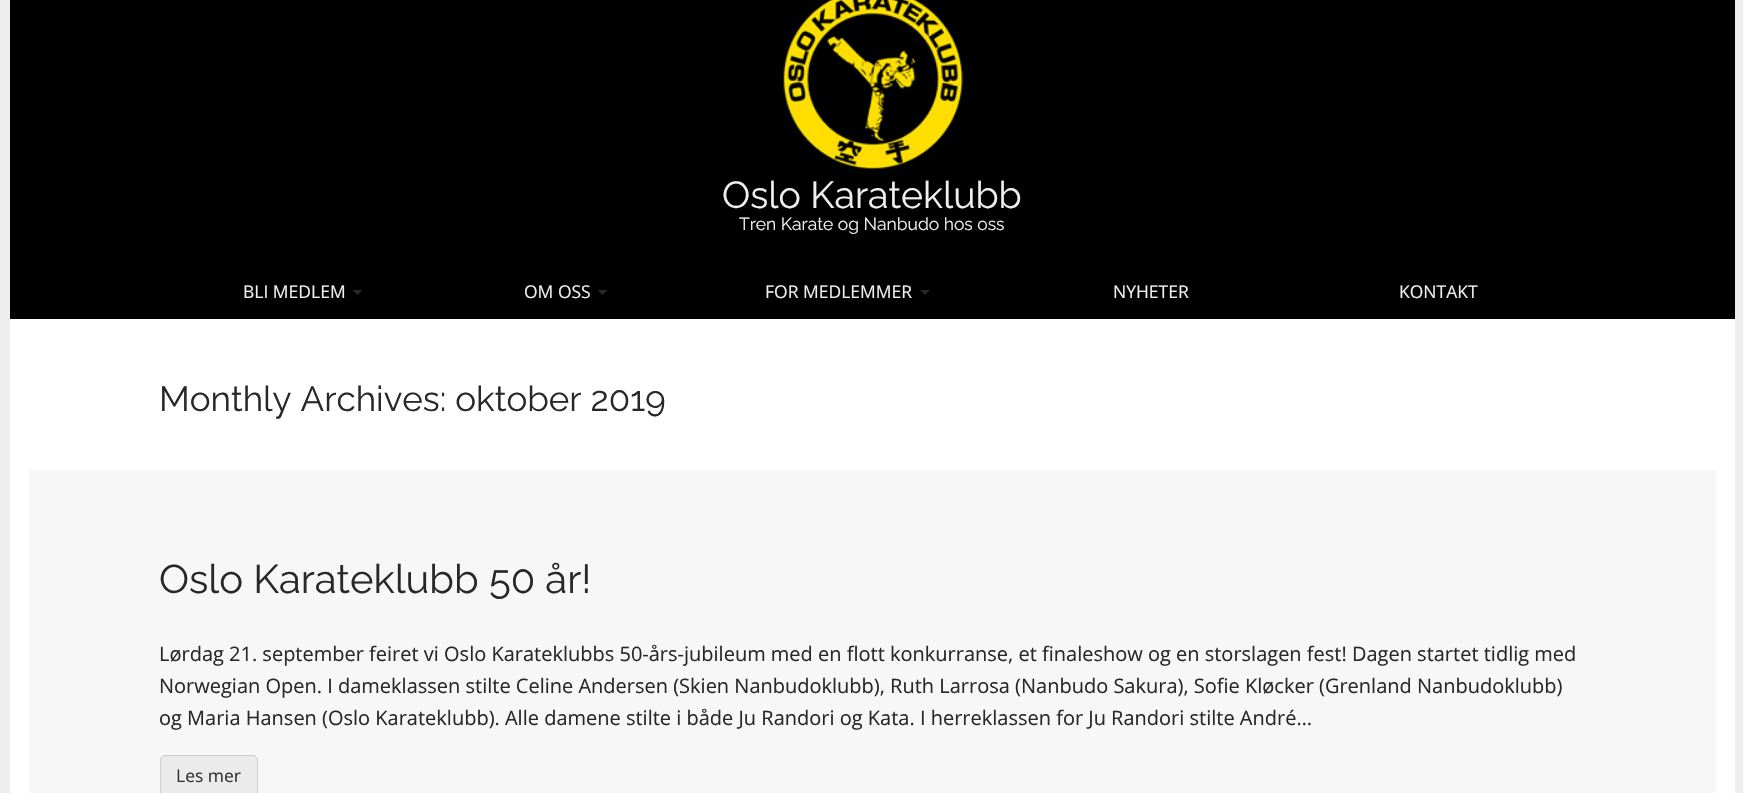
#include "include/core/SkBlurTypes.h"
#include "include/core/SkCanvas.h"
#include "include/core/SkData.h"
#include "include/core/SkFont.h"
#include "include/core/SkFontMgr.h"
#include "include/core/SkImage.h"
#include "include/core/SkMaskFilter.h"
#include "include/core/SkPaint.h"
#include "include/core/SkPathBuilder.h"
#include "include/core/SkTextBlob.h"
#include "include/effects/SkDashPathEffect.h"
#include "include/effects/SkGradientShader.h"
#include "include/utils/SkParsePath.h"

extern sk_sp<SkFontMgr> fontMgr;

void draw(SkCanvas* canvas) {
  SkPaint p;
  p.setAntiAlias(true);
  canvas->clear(SkColorSetRGB(238, 238, 238));
  p.setColor(SK_ColorWHITE);
  canvas->drawRect(SkRect::MakeLTRB(10, 319, 1735, 793), p);
  p.setColor(SK_ColorBLACK);
  canvas->drawRect(SkRect::MakeLTRB(10, 0, 1735, 319), p);
  canvas->drawImageRect(SkImages::DeferredFromEncodedData(SkData::MakeFromFileName("images/1.png")), SkRect::MakeLTRB(779, 0, 968, 173), SkSamplingOptions());
  p.setColor(SkColorSetRGB(40, 40, 40));
  canvas->drawPath(SkPathBuilder().moveTo(352.5f, 290).lineTo(362.5f, 290).lineTo(357.5f, 295).close().detach(), p);
  canvas->drawPath(SkPathBuilder().moveTo(597.5f, 290).lineTo(607.5f, 290).lineTo(602.5f, 295).close().detach(), p);
  canvas->drawPath(SkPathBuilder().moveTo(920, 290).lineTo(930, 290).lineTo(925, 295).close().detach(), p);
  p.setColor(SkColorSetRGB(247, 247, 247));
  canvas->drawRect(SkRect::MakeLTRB(29, 470, 1716, 793), p);
  p.setColor(SkColorSetRGB(235, 235, 235));
  canvas->drawRoundRect(SkRect::MakeLTRB(160.5f, 755.5f, 257.5f, 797.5f), 4.5f, 4.5f, p);
  p.setStyle(SkPaint::kStroke_Style);
  p.setStrokeWidth(1);
  p.setColor(SkColorSetRGB(204, 204, 204));
  canvas->drawRoundRect(SkRect::MakeLTRB(160.5f, 755.5f, 257.5f, 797.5f), 4.5f, 4.5f, p);
  SkFont font1(fontMgr->matchFamilyStyle("Raleway", SkFontStyle(100, SkFontStyle::kNormal_Width, SkFontStyle::kUpright_Slant)), 37.5f);
  font1.setSubpixel(true);
  p.setStyle(SkPaint::kFill_Style);
  p.setColor(SkColorSetRGB(239, 239, 239));
  canvas->drawString("Oslo Karateklubb", 722, 208, font1, p);
  SkFont font2(fontMgr->matchFamilyStyle("Raleway", SkFontStyle(100, SkFontStyle::kNormal_Width, SkFontStyle::kUpright_Slant)), 17.5f);
  font2.setSubpixel(true);
  canvas->drawString("Tren Karate og Nanbudo hos oss", 739, 230, font2, p);
  SkFont font3(fontMgr->matchFamilyStyle("Open Sans", SkFontStyle::Normal()), 17.5f);
  font3.setSubpixel(true);
  canvas->drawString("BLI MEDLEM", 243, 298, font3, p);
  canvas->drawString("OM OSS", 524, 298, font3, p);
  canvas->drawString("FOR MEDLEMMER", 765, 298, font3, p);
  canvas->drawString("NYHETER", 1113, 298, font3, p);
  canvas->drawString("KONTAKT", 1399, 298, font3, p);
  SkFont font4(fontMgr->matchFamilyStyle("Raleway", SkFontStyle(100, SkFontStyle::kNormal_Width, SkFontStyle::kUpright_Slant)), 35);
  font4.setSubpixel(true);
  p.setColor(SkColorSetRGB(40, 40, 40));
  canvas->drawString("Monthly Archives: oktober 2019", 159, 411, font4, p);
  SkFont font5(fontMgr->matchFamilyStyle("Raleway", SkFontStyle(100, SkFontStyle::kNormal_Width, SkFontStyle::kUpright_Slant)), 40);
  font5.setSubpixel(true);
  canvas->drawString("Oslo Karateklubb 50 år!", 159, 593, font5, p);
  SkFont font6(fontMgr->matchFamilyStyle("Open Sans", SkFontStyle::Normal()), 20);
  font6.setSubpixel(true);
  canvas->drawString("Lørdag 21. september feiret vi Oslo Karateklubbs 50-års-jubileum med en flott konkurranse, et finaleshow og en storslagen fest! Dagen startet tidlig med", 159, 661, font6, p);
  canvas->drawString("Norwegian Open. I dameklassen stilte Celine Andersen (Skien Nanbudoklubb), Ruth Larrosa (Nanbudo Sakura), Sofie Kløcker (Grenland Nanbudoklubb)", 159, 693, font6, p);
  canvas->drawString("og Maria Hansen (Oslo Karateklubb). Alle damene stilte i både Ju Randori og Kata. I herreklassen for Ju Randori stilte André…", 159, 725, font6, p);
  p.setColor(SkColorSetRGB(51, 51, 51));
  canvas->drawString("Les mer", 176, 782, font3, p);
}
